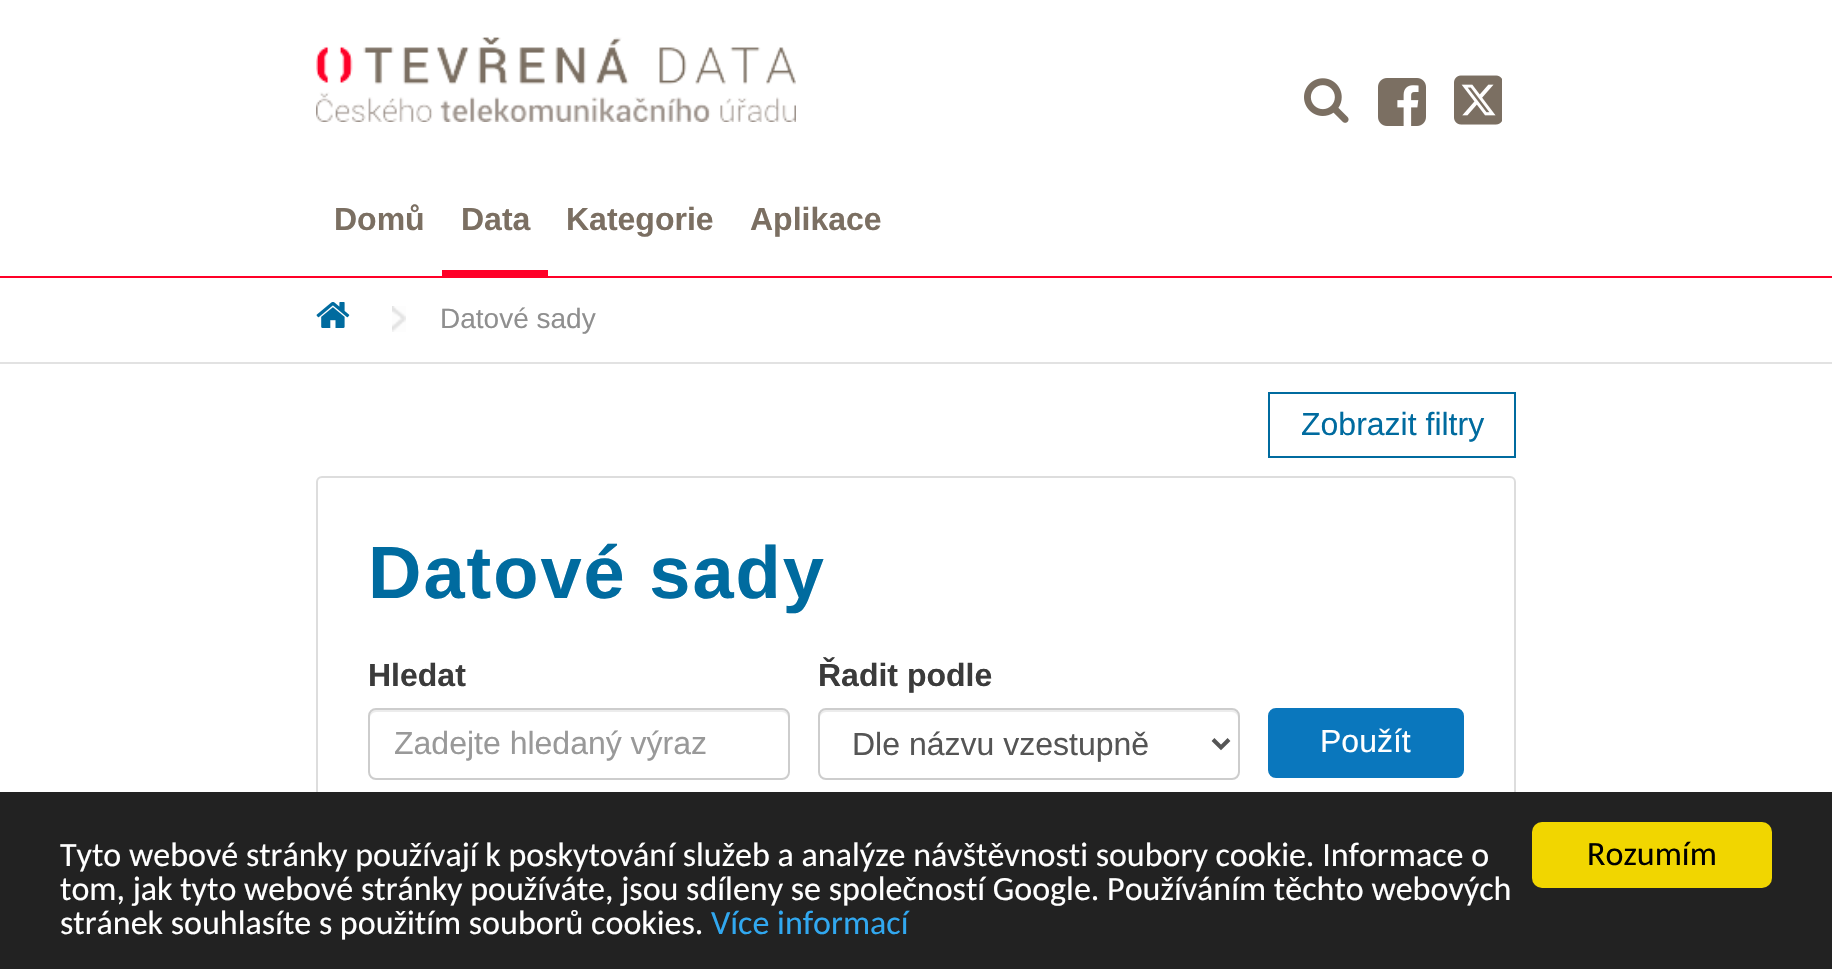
#include "include/core/SkBlurTypes.h"
#include "include/core/SkCanvas.h"
#include "include/core/SkData.h"
#include "include/core/SkFont.h"
#include "include/core/SkFontMgr.h"
#include "include/core/SkImage.h"
#include "include/core/SkMaskFilter.h"
#include "include/core/SkPaint.h"
#include "include/core/SkPathBuilder.h"
#include "include/core/SkTextBlob.h"
#include "include/effects/SkDashPathEffect.h"
#include "include/effects/SkGradientShader.h"
#include "include/utils/SkParsePath.h"

extern sk_sp<SkFontMgr> fontMgr;

void draw(SkCanvas* canvas) {
  SkPaint p;
  p.setAntiAlias(true);
  auto spacedText = [&](const char* s, float x, float y, const SkFont& font, const SkPaint& ink, float letter, float word) {
    std::vector<SkGlyphID> glyphs(font.countText(s, strlen(s), SkTextEncoding::kUTF8));
    std::vector<float> xs(glyphs.size());
    font.textToGlyphs(s, strlen(s), SkTextEncoding::kUTF8, glyphs);
    font.getXPos(glyphs, xs, x);
    float extra = 0;
    for (size_t i = 0; i < glyphs.size(); i++) {
      xs[i] += extra;
      extra += letter + word * (glyphs[i] == font.unicharToGlyph(' '));
    }
    canvas->drawTextBlob(SkTextBlob::MakeFromPosHGlyphs(glyphs, xs, y, font), 0, 0, ink);
  };
  canvas->clear(SK_ColorWHITE);
  p.setColor(SkColorSetRGB(255, 0, 40));
  canvas->drawRect(SkRect::MakeLTRB(0, 276, 1832, 278), p);
  canvas->drawImageRect(SkImages::DeferredFromEncodedData(SkData::MakeFromFileName("images/1.png")), SkRect::MakeLTRB(316, 37, 796, 122), SkSamplingOptions());
  canvas->drawImageRect(SkImages::DeferredFromEncodedData(SkData::MakeFromFileName("images/2.png")), SkRect::MakeLTRB(1304, 78, 1349, 123), SkSamplingOptions());
  canvas->drawImageRect(SkImages::DeferredFromEncodedData(SkData::MakeFromFileName("images/3.png")), SkRect::MakeLTRB(1378, 78, 1426, 126), SkSamplingOptions());
  canvas->drawImageRect(SkImages::DeferredFromEncodedData(SkData::MakeFromFileName("images/4.png")), SkRect::MakeLTRB(1454, 75, 1502, 125), SkSamplingOptions());
  canvas->drawRect(SkRect::MakeLTRB(442, 270, 548, 276), p);
  p.setColor(SkColorSetRGB(226, 226, 226));
  canvas->drawRect(SkRect::MakeLTRB(0, 362, 1832, 364), p);
  canvas->drawImageRect(SkImages::DeferredFromEncodedData(SkData::MakeFromFileName("images/5.png")), SkRect::MakeLTRB(316, 302, 350, 328), SkSamplingOptions());
  canvas->drawImageRect(SkImages::DeferredFromEncodedData(SkData::MakeFromFileName("images/6.png")), SkRect::MakeLTRB(392, 306, 406, 332), SkSamplingOptions());
  p.setStyle(SkPaint::kStroke_Style);
  p.setStrokeWidth(2);
  p.setColor(SkColorSetRGB(0, 107, 159));
  canvas->drawRect(SkRect::MakeLTRB(1269, 393, 1515, 457), p);
  p.setColor(SkColorSetRGB(221, 221, 221));
  canvas->drawRoundRect(SkRect::MakeLTRB(317, 477, 1515, 959), 5, 5, p);
  p.setStyle(SkPaint::kFill_Style);
  p.setColor(SkColorSetRGB(236, 236, 236));
  canvas->drawPath(SkPathBuilder().moveTo(376, 712).lineTo(782, 712).cubicTo(785, 712, 788, 715, 788, 718).lineTo(788, 716).cubicTo(788, 713, 785, 710, 782, 710).lineTo(376, 710).cubicTo(373, 710, 370, 713, 370, 716).lineTo(370, 718).cubicTo(370, 715, 373, 712, 376, 712).close().detach(), p);
  p.setStyle(SkPaint::kStroke_Style);
  p.setColor(SkColorSetRGB(205, 205, 205));
  canvas->drawRoundRect(SkRect::MakeLTRB(369, 709, 789, 779), 7, 7, p);
  p.setStyle(SkPaint::kFill_Style);
  p.setColor(SkColorSetRGB(236, 236, 236));
  canvas->drawPath(SkPathBuilder().moveTo(826, 712).lineTo(1232, 712).cubicTo(1235, 712, 1238, 715, 1238, 718).lineTo(1238, 716).cubicTo(1238, 713, 1235, 710, 1232, 710).lineTo(826, 710).cubicTo(823, 710, 820, 713, 820, 716).lineTo(820, 718).cubicTo(820, 715, 823, 712, 826, 712).close().detach(), p);
  p.setStyle(SkPaint::kStroke_Style);
  p.setColor(SkColorSetRGB(205, 205, 205));
  canvas->drawRoundRect(SkRect::MakeLTRB(819, 709, 1239, 779), 7, 7, p);
  p.setStrokeWidth(4);
  p.setColor(SkColorSetRGB(85, 85, 85));
  canvas->drawPath(SkPathBuilder().moveTo(1213, 739.5f).lineTo(1221, 747.5f).lineTo(1229, 739.5f).detach(), p);
  p.setStyle(SkPaint::kFill_Style);
  p.setColor(SkColorSetRGB(10, 119, 189));
  canvas->drawRoundRect(SkRect::MakeLTRB(1269, 709, 1463, 777), 7, 7, p);
  p.setStyle(SkPaint::kStroke_Style);
  p.setStrokeWidth(2);
  canvas->drawRoundRect(SkRect::MakeLTRB(1269, 709, 1463, 777), 7, 7, p);
  p.setStyle(SkPaint::kFill_Style);
  p.setColor(SkColorSetRGB(34, 34, 34));
  canvas->drawRect(SkRect::MakeLTRB(0, 792, 1832, 969), p);
  p.setColor(SkColorSetRGB(241, 214, 0));
  canvas->drawRoundRect(SkRect::MakeLTRB(1532, 822, 1772, 888), 10, 10, p);
  SkFont font1(fontMgr->matchFamilyStyle("Liberation Sans", SkFontStyle::Bold()), 32);
  font1.setSubpixel(true);
  p.setColor(SkColorSetRGB(123, 111, 98));
  canvas->drawString("Domů", 334, 230, font1, p);
  canvas->drawString("Data", 461, 230, font1, p);
  canvas->drawString("Kategorie", 566, 230, font1, p);
  canvas->drawString("Aplikace", 750, 230, font1, p);
  SkFont font2(fontMgr->matchFamilyStyle("Liberation Sans", SkFontStyle::Normal()), 28);
  font2.setSubpixel(true);
  p.setColor(SkColorSetRGB(143, 143, 143));
  canvas->drawString("Datové sady", 440, 328, font2, p);
  SkFont font3(fontMgr->matchFamilyStyle("Liberation Sans", SkFontStyle::Normal()), 32);
  font3.setSubpixel(true);
  p.setColor(SkColorSetRGB(0, 107, 159));
  canvas->drawString("Zobrazit filtry", 1301, 435, font3, p);
  SkFont font4(fontMgr->matchFamilyStyle("Liberation Sans", SkFontStyle::Bold()), 74);
  font4.setSubpixel(true);
  spacedText("Datové sady", 368, 598, font4, p, 2, 0);
  p.setColor(SkColorSetRGB(59, 59, 59));
  canvas->drawString("Hledat", 368, 686, font1, p);
  p.setColor(SkColorSetRGB(153, 153, 153));
  canvas->drawString("Zadejte hledaný výraz", 394, 754, font3, p);
  p.setColor(SkColorSetRGB(59, 59, 59));
  canvas->drawString("Řadit podle", 818, 686, font1, p);
  p.setColor(SkColorSetRGB(85, 85, 85));
  canvas->drawString("Dle názvu vzestupně", 852, 755, font3, p);
  p.setColor(SK_ColorWHITE);
  canvas->drawString("Použít", 1320, 752, font3, p);
  SkFont font5(fontMgr->matchFamilyStyle("Carlito", SkFontStyle::Normal()), 34);
  font5.setSubpixel(true);
  canvas->drawString("Tyto webové stránky používají k poskytování služeb a analýze návštěvnosti soubory cookie. Informace o", 60, 866, font5, p);
  canvas->drawString("tom, jak tyto webové stránky používáte, jsou sdíleny se společností Google. Používáním těchto webových", 60, 900, font5, p);
  canvas->drawString("stránek souhlasíte s použitím souborů cookies.", 60, 934, font5, p);
  p.setColor(SkColorSetRGB(49, 168, 240));
  canvas->drawString("Více informací", 711, 934, font5, p);
  p.setColor(SK_ColorBLACK);
  canvas->drawString("Rozumím", 1587, 865, font5, p);
}
